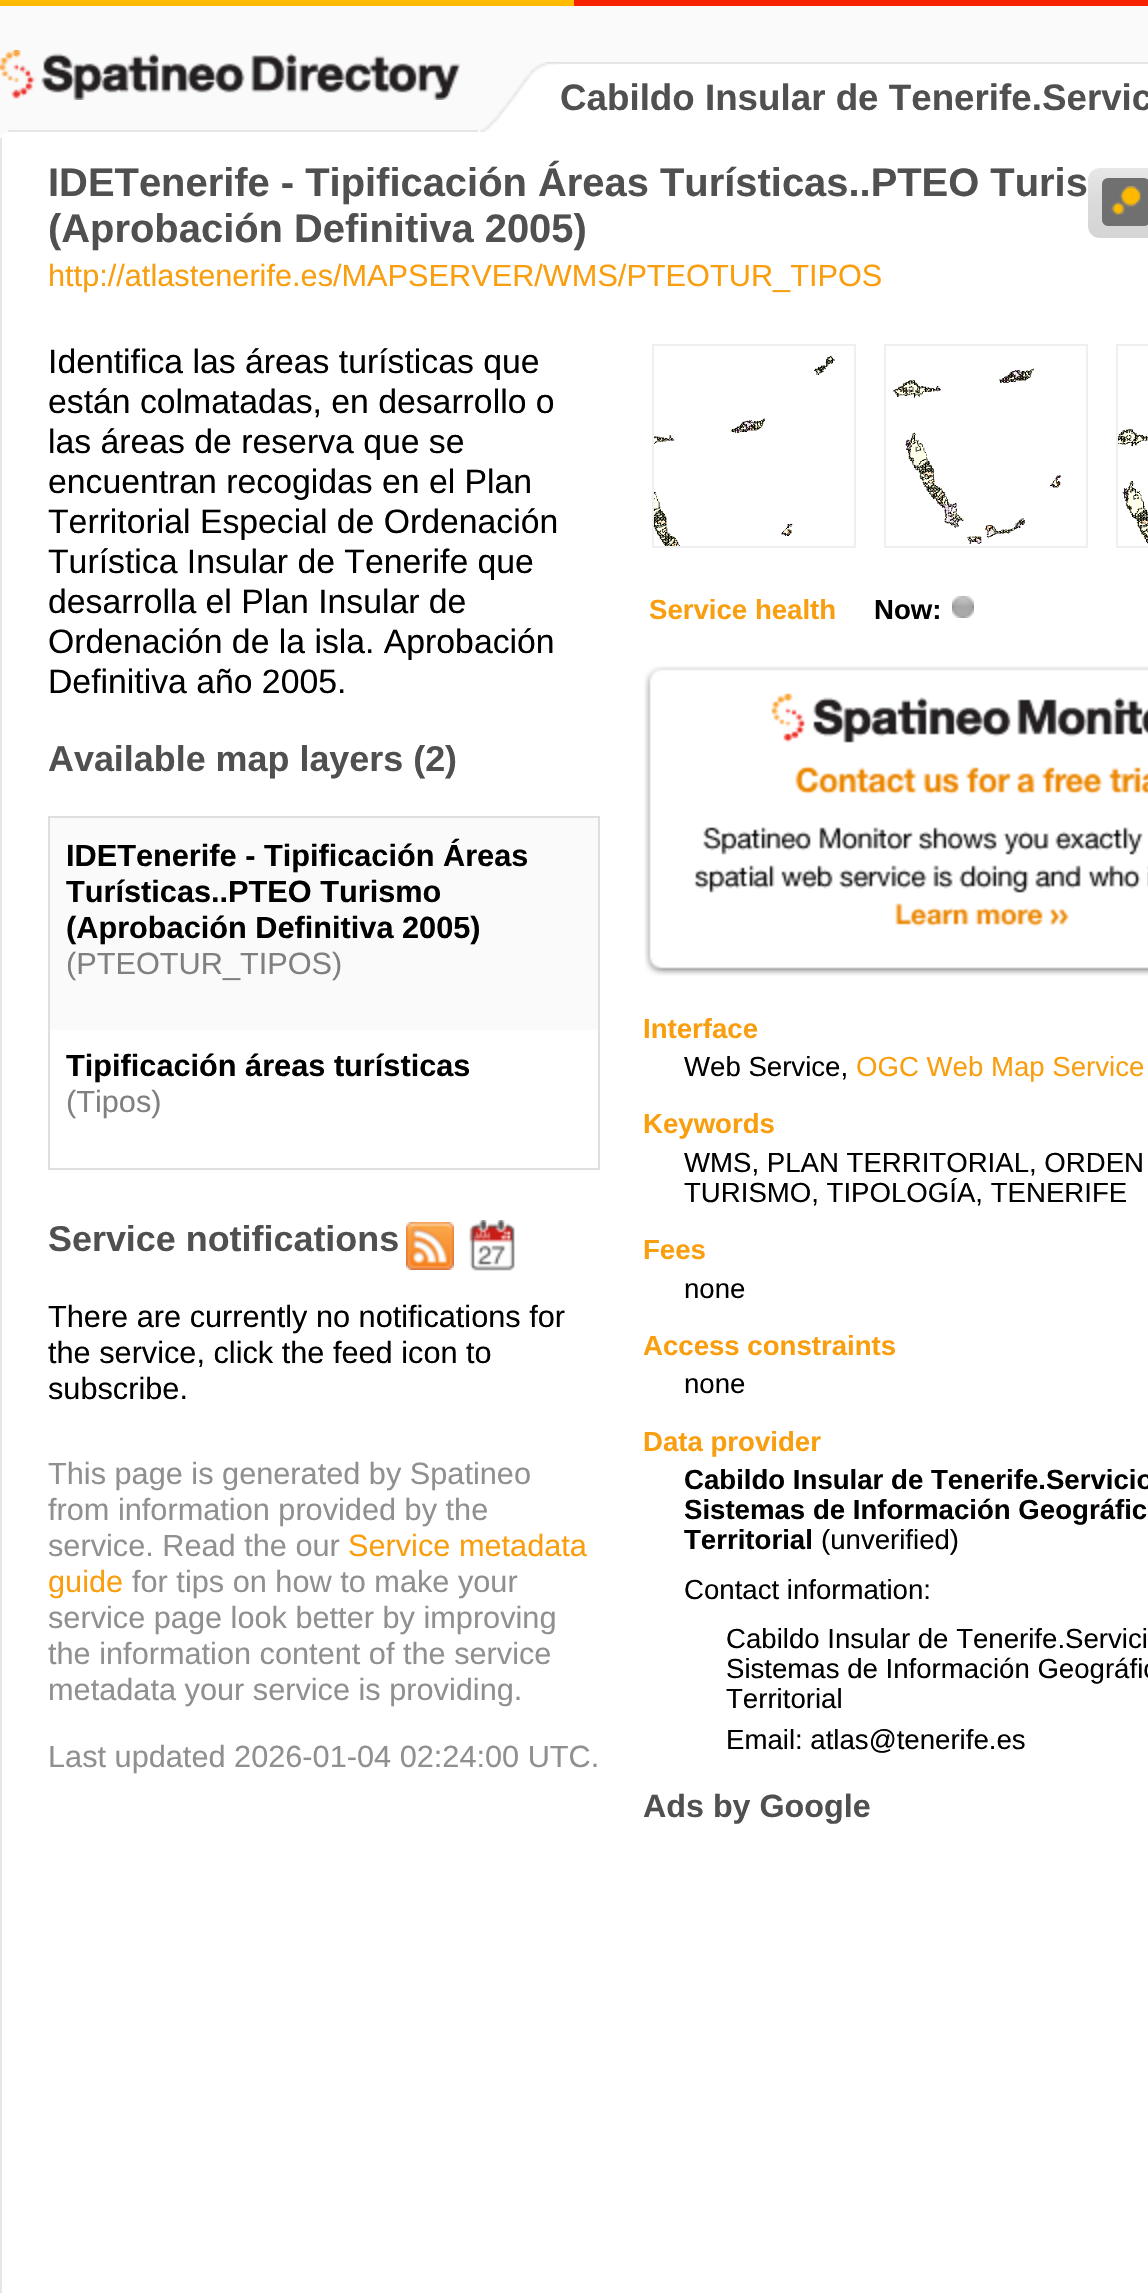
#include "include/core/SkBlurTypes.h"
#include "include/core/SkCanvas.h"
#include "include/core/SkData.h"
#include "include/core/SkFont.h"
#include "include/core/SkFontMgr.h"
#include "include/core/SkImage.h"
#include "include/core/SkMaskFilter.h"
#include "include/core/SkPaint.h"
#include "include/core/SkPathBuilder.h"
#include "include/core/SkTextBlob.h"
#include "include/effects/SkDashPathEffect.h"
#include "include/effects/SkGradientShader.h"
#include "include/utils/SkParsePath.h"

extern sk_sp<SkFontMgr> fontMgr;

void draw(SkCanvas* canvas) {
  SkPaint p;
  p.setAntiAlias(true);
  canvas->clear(SkColorSetRGB(250, 250, 250));
  p.setColor(SkColorSetRGB(255, 187, 0));
  canvas->drawRect(SkRect::MakeLTRB(0, 0, 574, 6), p);
  p.setColor(SkColorSetRGB(248, 34, 0));
  canvas->drawRect(SkRect::MakeLTRB(574, 0, 1148, 6), p);
  canvas->drawImageRect(SkImages::DeferredFromEncodedData(SkData::MakeFromFileName("images/1.png")), SkRect::MakeLTRB(0, 50, 460, 100), SkSamplingOptions());
  canvas->drawImageRect(SkImages::DeferredFromEncodedData(SkData::MakeFromFileName("images/2.png")), SkRect::MakeLTRB(480, 62, 558, 132), SkSamplingOptions());
  p.setColor(SK_ColorWHITE);
  canvas->drawRect(SkRect::MakeLTRB(558, 64, 1148, 132), p);
  p.setColor(SkColorSetRGB(230, 230, 230));
  canvas->drawRect(SkRect::MakeLTRB(558, 62, 1148, 64), p);
  canvas->drawRect(SkRect::MakeLTRB(8, 130, 478, 132), p);
  p.setColor(SK_ColorWHITE);
  canvas->drawPath(SkPathBuilder().moveTo(10, 132).lineTo(1148, 132).cubicTo(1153.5f, 132, 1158, 136.5f, 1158, 142).lineTo(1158, 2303).lineTo(0, 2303).lineTo(0, 142).cubicTo(0, 136.5f, 4.5f, 132, 10, 132).close().detach(), p);
  p.setColor(SkColorSetRGB(230, 230, 230));
  canvas->drawRect(SkRect::MakeLTRB(0, 138, 2, 2293), p);
  p.setStyle(SkPaint::kStroke_Style);
  p.setStrokeWidth(2);
  p.setColor(SkColorSetRGB(223, 223, 223));
  canvas->drawRect(SkRect::MakeLTRB(49, 817, 599, 1169), p);
  p.setStyle(SkPaint::kFill_Style);
  p.setColor(SkColorSetRGB(250, 250, 250));
  canvas->drawRect(SkRect::MakeLTRB(50, 818, 598, 1030), p);
  canvas->drawImageRect(SkImages::DeferredFromEncodedData(SkData::MakeFromFileName("images/3.png")), SkRect::MakeLTRB(406, 1222, 454, 1270), SkSamplingOptions());
  canvas->drawImageRect(SkImages::DeferredFromEncodedData(SkData::MakeFromFileName("images/4.png")), SkRect::MakeLTRB(469, 1220, 515, 1271), SkSamplingOptions());
  p.setStyle(SkPaint::kStroke_Style);
  p.setColor(SkColorSetRGB(239, 239, 239));
  canvas->drawRect(SkRect::MakeLTRB(653, 345, 855, 547), p);
  canvas->drawRect(SkRect::MakeLTRB(885, 345, 1087, 547), p);
  canvas->drawRect(SkRect::MakeLTRB(1117, 345, 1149, 547), p);
  canvas->drawImageRect(SkImages::DeferredFromEncodedData(SkData::MakeFromFileName("images/5.png")), SkRect::MakeLTRB(654, 356, 835, 546), SkSamplingOptions());
  canvas->drawImageRect(SkImages::DeferredFromEncodedData(SkData::MakeFromFileName("images/6.png")), SkRect::MakeLTRB(893, 368, 1061, 544), SkSamplingOptions());
  canvas->drawImageRect(SkImages::DeferredFromEncodedData(SkData::MakeFromFileName("images/7.png")), SkRect::MakeLTRB(1118, 428, 1148, 544), SkSamplingOptions());
  canvas->drawImageRect(SkImages::DeferredFromEncodedData(SkData::MakeFromFileName("images/8.png")), SkRect::MakeLTRB(952, 596, 974, 618), SkSamplingOptions());
  canvas->drawImageRect(SkImages::DeferredFromEncodedData(SkData::MakeFromFileName("images/9.png")), SkRect::MakeLTRB(644, 666, 1148, 976), SkSamplingOptions());
  p.setStyle(SkPaint::kFill_Style);
  {
    const SkColor colors[] = {SkColorSetRGB(231, 231, 231), SkColorSetRGB(218, 218, 218), SkColorSetRGB(213, 213, 213)};
    const float stops[] = {0, 0.5f, 1};
    const SkPoint ends[] = {{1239, 168}, {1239, 238}};
    p.setShader(SkGradientShader::MakeLinear(ends, colors, stops, 3, SkTileMode::kClamp));
    p.setAlpha(255);
  }
  canvas->drawRoundRect(SkRect::MakeLTRB(1088, 168, 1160, 238), 12, 12, p);
  p.setShader(nullptr);
  p.setColor(SkColorSetRGB(112, 112, 112));
  canvas->drawRoundRect(SkRect::MakeLTRB(1102, 178, 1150, 226), 6, 6, p);
  canvas->drawImageRect(SkImages::DeferredFromEncodedData(SkData::MakeFromFileName("images/10.png")), SkRect::MakeLTRB(1111, 186, 1141, 215), SkSamplingOptions());
  SkFont font1(fontMgr->matchFamilyStyle("Liberation Sans", SkFontStyle::Bold()), 36.75f);
  font1.setSubpixel(true);
  p.setColor(SkColorSetRGB(80, 80, 80));
  canvas->drawString("Cabildo Insular de Tenerife.Servic", 560, 110, font1, p);
  SkFont font2(fontMgr->matchFamilyStyle("Liberation Sans", SkFontStyle::Bold()), 39.9f);
  font2.setSubpixel(true);
  canvas->drawString("IDETenerife - Tipificación Áreas Turísticas..PTEO Turis", 48, 196, font2, p);
  canvas->drawString("(Aprobación Definitiva 2005)", 48, 242, font2, p);
  SkFont font3(fontMgr->matchFamilyStyle("Liberation Sans", SkFontStyle::Normal()), 30.7f);
  font3.setSubpixel(true);
  p.setColor(SkColorSetRGB(249, 158, 15));
  canvas->drawString("http://atlastenerife.es/MAPSERVER/WMS/PTEOTUR_TIPOS", 48, 286, font3, p);
  SkFont font4(fontMgr->matchFamilyStyle("Liberation Sans", SkFontStyle::Normal()), 33.75f);
  font4.setSubpixel(true);
  p.setColor(SK_ColorBLACK);
  canvas->drawString("Identifica las áreas turísticas que", 48, 373, font4, p);
  canvas->drawString("están colmatadas, en desarrollo o", 48, 413, font4, p);
  canvas->drawString("las áreas de reserva que se", 48, 453, font4, p);
  canvas->drawString("encuentran recogidas en el Plan", 48, 493, font4, p);
  canvas->drawString("Territorial Especial de Ordenación", 48, 533, font4, p);
  canvas->drawString("Turística Insular de Tenerife que", 48, 573, font4, p);
  canvas->drawString("desarrolla el Plan Insular de", 48, 613, font4, p);
  canvas->drawString("Ordenación de la isla. Aprobación", 48, 653, font4, p);
  canvas->drawString("Definitiva año 2005.", 48, 693, font4, p);
  SkFont font5(fontMgr->matchFamilyStyle("Liberation Sans", SkFontStyle::Bold()), 35.9f);
  font5.setSubpixel(true);
  p.setColor(SkColorSetRGB(80, 80, 80));
  canvas->drawString("Available map layers (2)", 48, 771, font5, p);
  SkFont font6(fontMgr->matchFamilyStyle("Liberation Sans", SkFontStyle::Bold()), 30.7f);
  font6.setSubpixel(true);
  p.setColor(SK_ColorBLACK);
  canvas->drawString("IDETenerife - Tipificación Áreas", 66, 866, font6, p);
  canvas->drawString("Turísticas..PTEO Turismo", 66, 902, font6, p);
  canvas->drawString("(Aprobación Definitiva 2005)", 66, 938, font6, p);
  p.setColor(SkColorSetRGB(128, 128, 128));
  canvas->drawString("(PTEOTUR_TIPOS)", 66, 974, font3, p);
  p.setColor(SK_ColorBLACK);
  canvas->drawString("Tipificación áreas turísticas", 66, 1076, font6, p);
  p.setColor(SkColorSetRGB(128, 128, 128));
  canvas->drawString("(Tipos)", 66, 1112, font3, p);
  p.setColor(SkColorSetRGB(80, 80, 80));
  canvas->drawString("Service notifications", 48, 1251, font5, p);
  p.setColor(SK_ColorBLACK);
  canvas->drawString("There are currently no notifications for", 48, 1327, font3, p);
  canvas->drawString("the service, click the feed icon to", 48, 1363, font3, p);
  canvas->drawString("subscribe.", 48, 1399, font3, p);
  p.setColor(SkColorSetRGB(144, 144, 144));
  canvas->drawString("This page is generated by Spatineo", 48, 1484, font3, p);
  canvas->drawString("from information provided by the", 48, 1520, font3, p);
  canvas->drawString("service. Read the our", 48, 1556, font3, p);
  p.setColor(SkColorSetRGB(249, 158, 15));
  canvas->drawString("Service metadata", 348, 1556, font3, p);
  canvas->drawString("guide", 48, 1592, font3, p);
  p.setColor(SkColorSetRGB(144, 144, 144));
  canvas->drawString("for tips on how to make your", 132, 1592, font3, p);
  canvas->drawString("service page look better by improving", 48, 1628, font3, p);
  canvas->drawString("the information content of the service", 48, 1664, font3, p);
  canvas->drawString("metadata your service is providing.", 48, 1700, font3, p);
  canvas->drawString("Last updated 2026-01-04 02:24:00 UTC.", 48, 1767, font3, p);
  SkFont font7(fontMgr->matchFamilyStyle("Liberation Sans", SkFontStyle::Bold()), 27.6f);
  font7.setSubpixel(true);
  p.setColor(SkColorSetRGB(249, 158, 15));
  canvas->drawString("Service health", 649, 619, font7, p);
  p.setColor(SK_ColorBLACK);
  canvas->drawString("Now:", 874, 619, font7, p);
  p.setColor(SkColorSetRGB(249, 158, 15));
  canvas->drawString("Interface", 643, 1038, font7, p);
  SkFont font8(fontMgr->matchFamilyStyle("Liberation Sans", SkFontStyle::Normal()), 27.6f);
  font8.setSubpixel(true);
  p.setColor(SK_ColorBLACK);
  canvas->drawString("Web Service,", 684, 1076, font8, p);
  p.setColor(SkColorSetRGB(249, 158, 15));
  canvas->drawString("OGC Web Map Service", 856, 1076, font8, p);
  canvas->drawString("Keywords", 643, 1133, font7, p);
  p.setColor(SK_ColorBLACK);
  canvas->drawString("WMS, PLAN TERRITORIAL", 684, 1172, font8, p);
  canvas->drawString(", ORDEN", 1029, 1172, font8, p);
  canvas->drawString("TURISMO, TIPOLOGÍA, TENERIFE", 684, 1202, font8, p);
  p.setColor(SkColorSetRGB(249, 158, 15));
  canvas->drawString("Fees", 643, 1259, font7, p);
  p.setColor(SK_ColorBLACK);
  canvas->drawString("none", 684, 1298, font8, p);
  p.setColor(SkColorSetRGB(249, 158, 15));
  canvas->drawString("Access constraints", 643, 1355, font7, p);
  p.setColor(SK_ColorBLACK);
  canvas->drawString("none", 684, 1393, font8, p);
  p.setColor(SkColorSetRGB(249, 158, 15));
  canvas->drawString("Data provider", 643, 1451, font7, p);
  p.setColor(SK_ColorBLACK);
  canvas->drawString("Cabildo Insular de Tenerife.Servicio", 684, 1489, font7, p);
  canvas->drawString("Sistemas de Información Geográfic", 684, 1519, font7, p);
  canvas->drawString("Territorial", 684, 1549, font7, p);
  canvas->drawString("(unverified)", 821, 1549, font8, p);
  canvas->drawString("Contact information:", 684, 1599, font8, p);
  canvas->drawString("Cabildo Insular de Tenerife.Servici", 726, 1648, font8, p);
  canvas->drawString("Sistemas de Información Geográfic", 726, 1678, font8, p);
  canvas->drawString("Territorial", 726, 1708, font8, p);
  canvas->drawString("Email: atlas@tenerife.es", 726, 1749, font8, p);
  SkFont font9(fontMgr->matchFamilyStyle("Liberation Sans", SkFontStyle::Bold()), 32.25f);
  font9.setSubpixel(true);
  p.setColor(SkColorSetRGB(80, 80, 80));
  canvas->drawString("Ads by Google", 643, 1817, font9, p);
}
